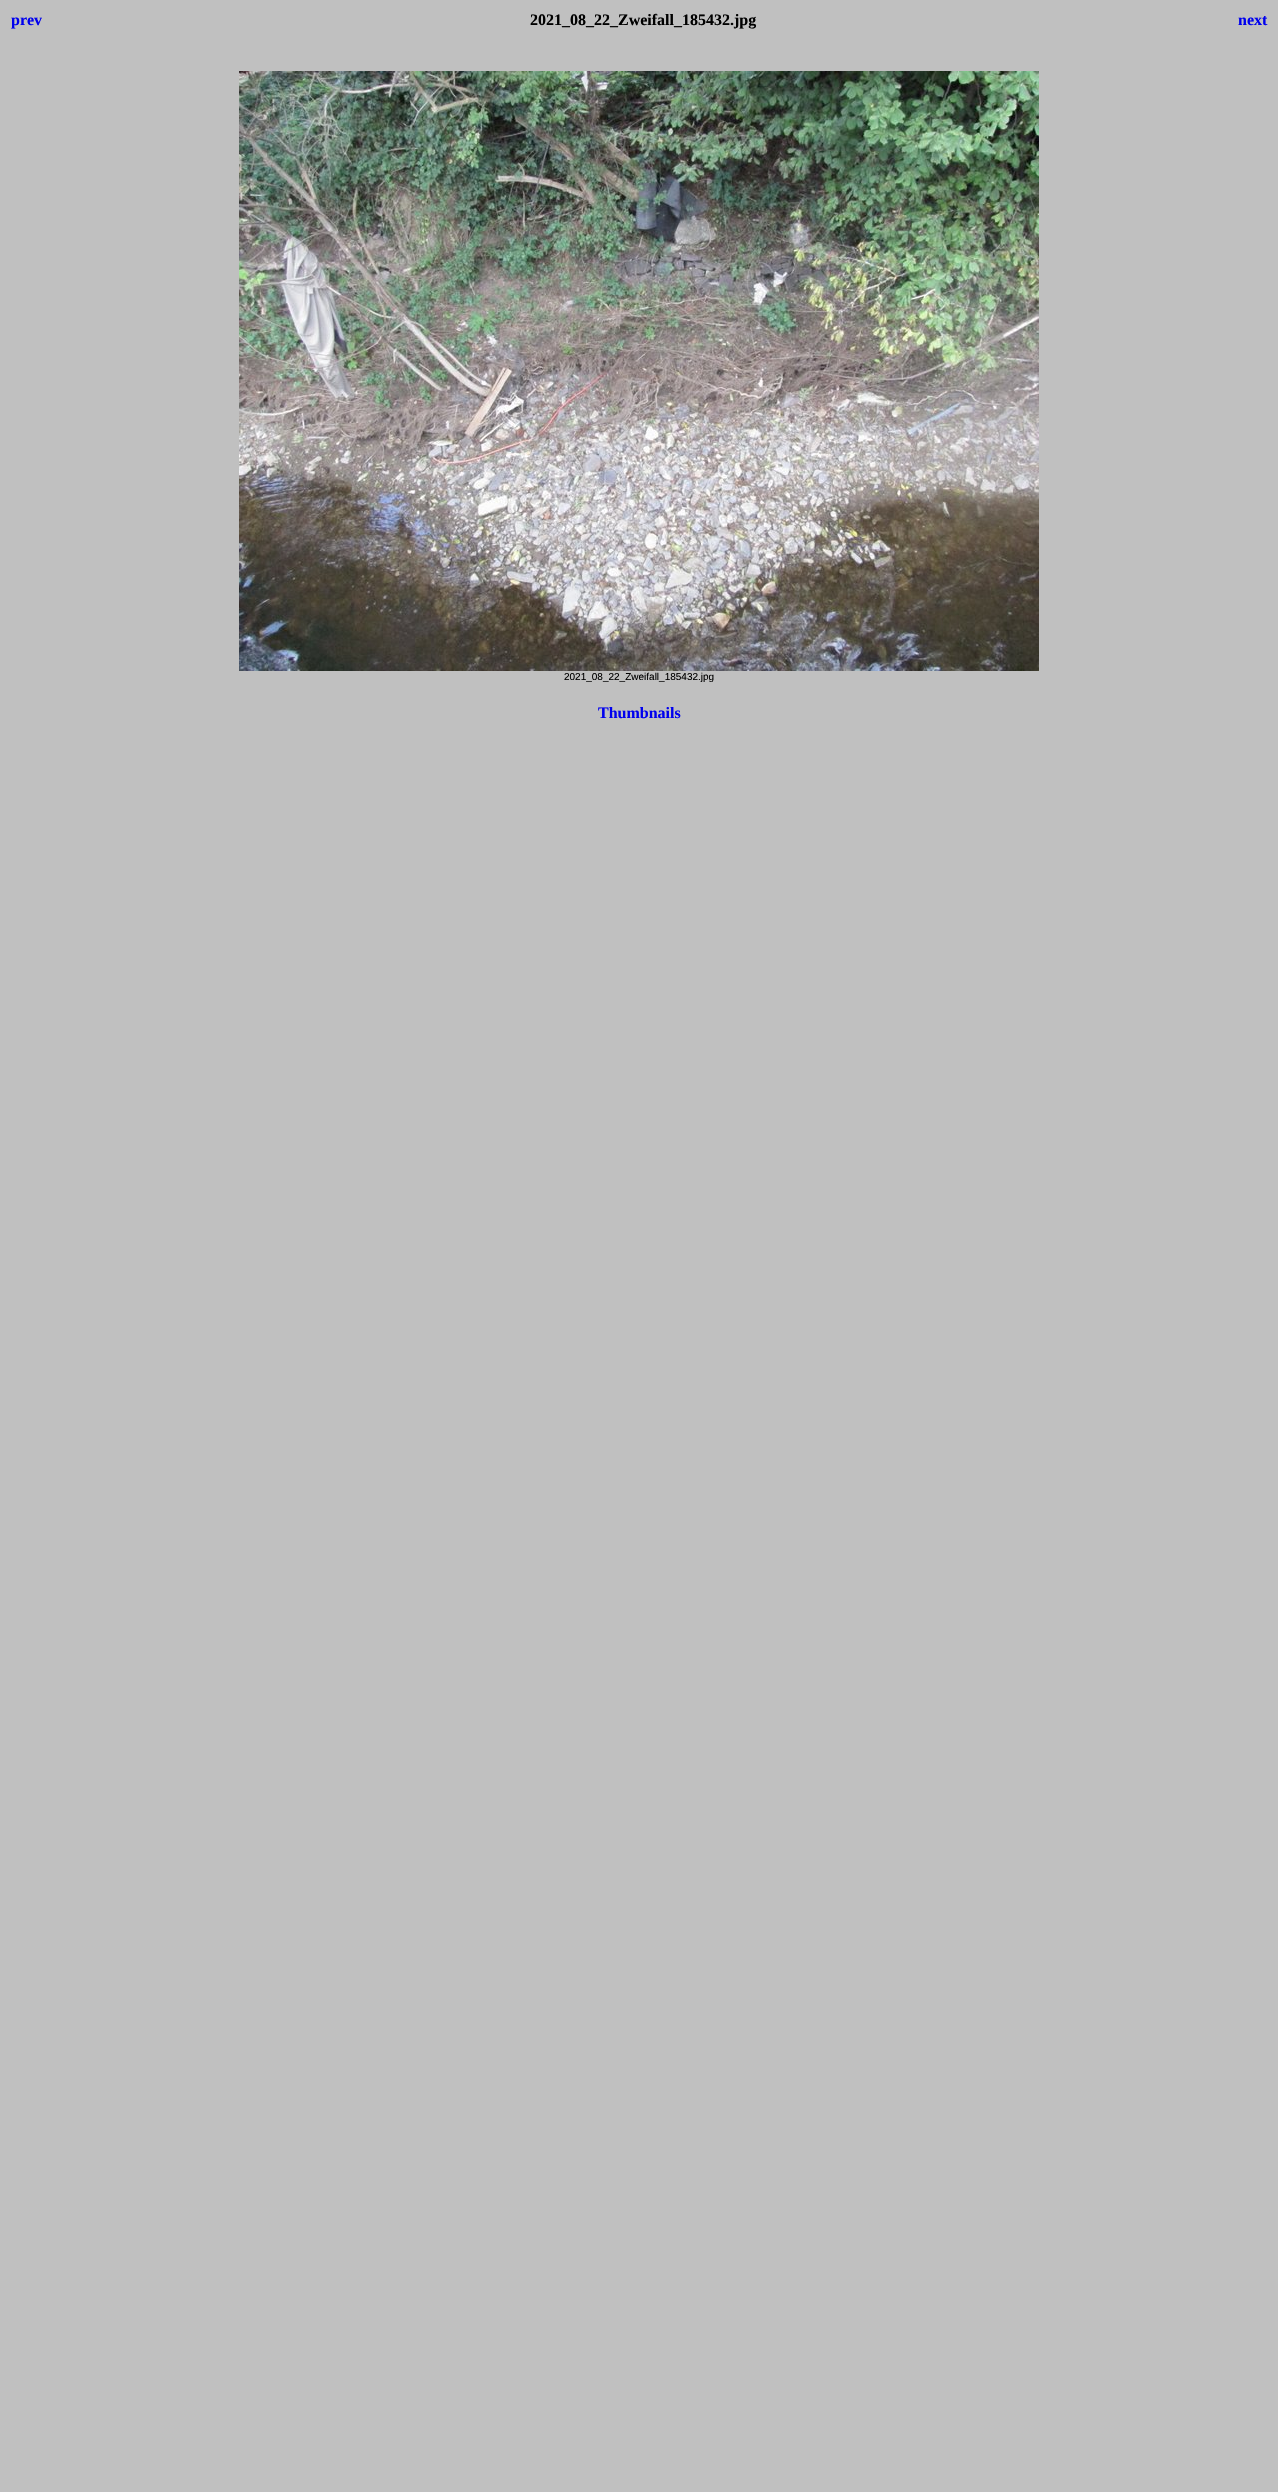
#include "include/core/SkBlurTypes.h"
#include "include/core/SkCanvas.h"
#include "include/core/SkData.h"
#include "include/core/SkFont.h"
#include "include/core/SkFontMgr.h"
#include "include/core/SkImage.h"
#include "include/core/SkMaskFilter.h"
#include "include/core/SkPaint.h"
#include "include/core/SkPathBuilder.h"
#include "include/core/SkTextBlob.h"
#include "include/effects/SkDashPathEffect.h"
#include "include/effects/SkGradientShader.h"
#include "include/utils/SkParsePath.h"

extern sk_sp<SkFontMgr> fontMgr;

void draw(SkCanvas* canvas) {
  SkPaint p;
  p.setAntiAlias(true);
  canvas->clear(SkColorSetRGB(192, 192, 192));
  canvas->drawImageRect(SkImages::DeferredFromEncodedData(SkData::MakeFromFileName("images/1.png")), SkRect::MakeLTRB(239, 71, 1039, 671), SkSamplingOptions());
  SkFont font1(fontMgr->matchFamilyStyle("Liberation Serif", SkFontStyle::Bold()), 16);
  font1.setSubpixel(true);
  p.setColor(SkColorSetRGB(0, 0, 238));
  canvas->drawString("prev", 11, 25, font1, p);
  p.setColor(SK_ColorBLACK);
  canvas->drawString("2021_08_22_Zweifall_185432.jpg", 530, 25, font1, p);
  p.setColor(SkColorSetRGB(0, 0, 238));
  canvas->drawString("next", 1238, 25, font1, p);
  SkFont font2(fontMgr->matchFamilyStyle("Liberation Sans", SkFontStyle::Normal()), 10);
  font2.setSubpixel(true);
  p.setColor(SK_ColorBLACK);
  canvas->drawString("2021_08_22_Zweifall_185432.jpg", 564, 680, font2, p);
  p.setColor(SkColorSetRGB(0, 0, 238));
  canvas->drawString("Thumbnails", 598, 718, font1, p);
}
